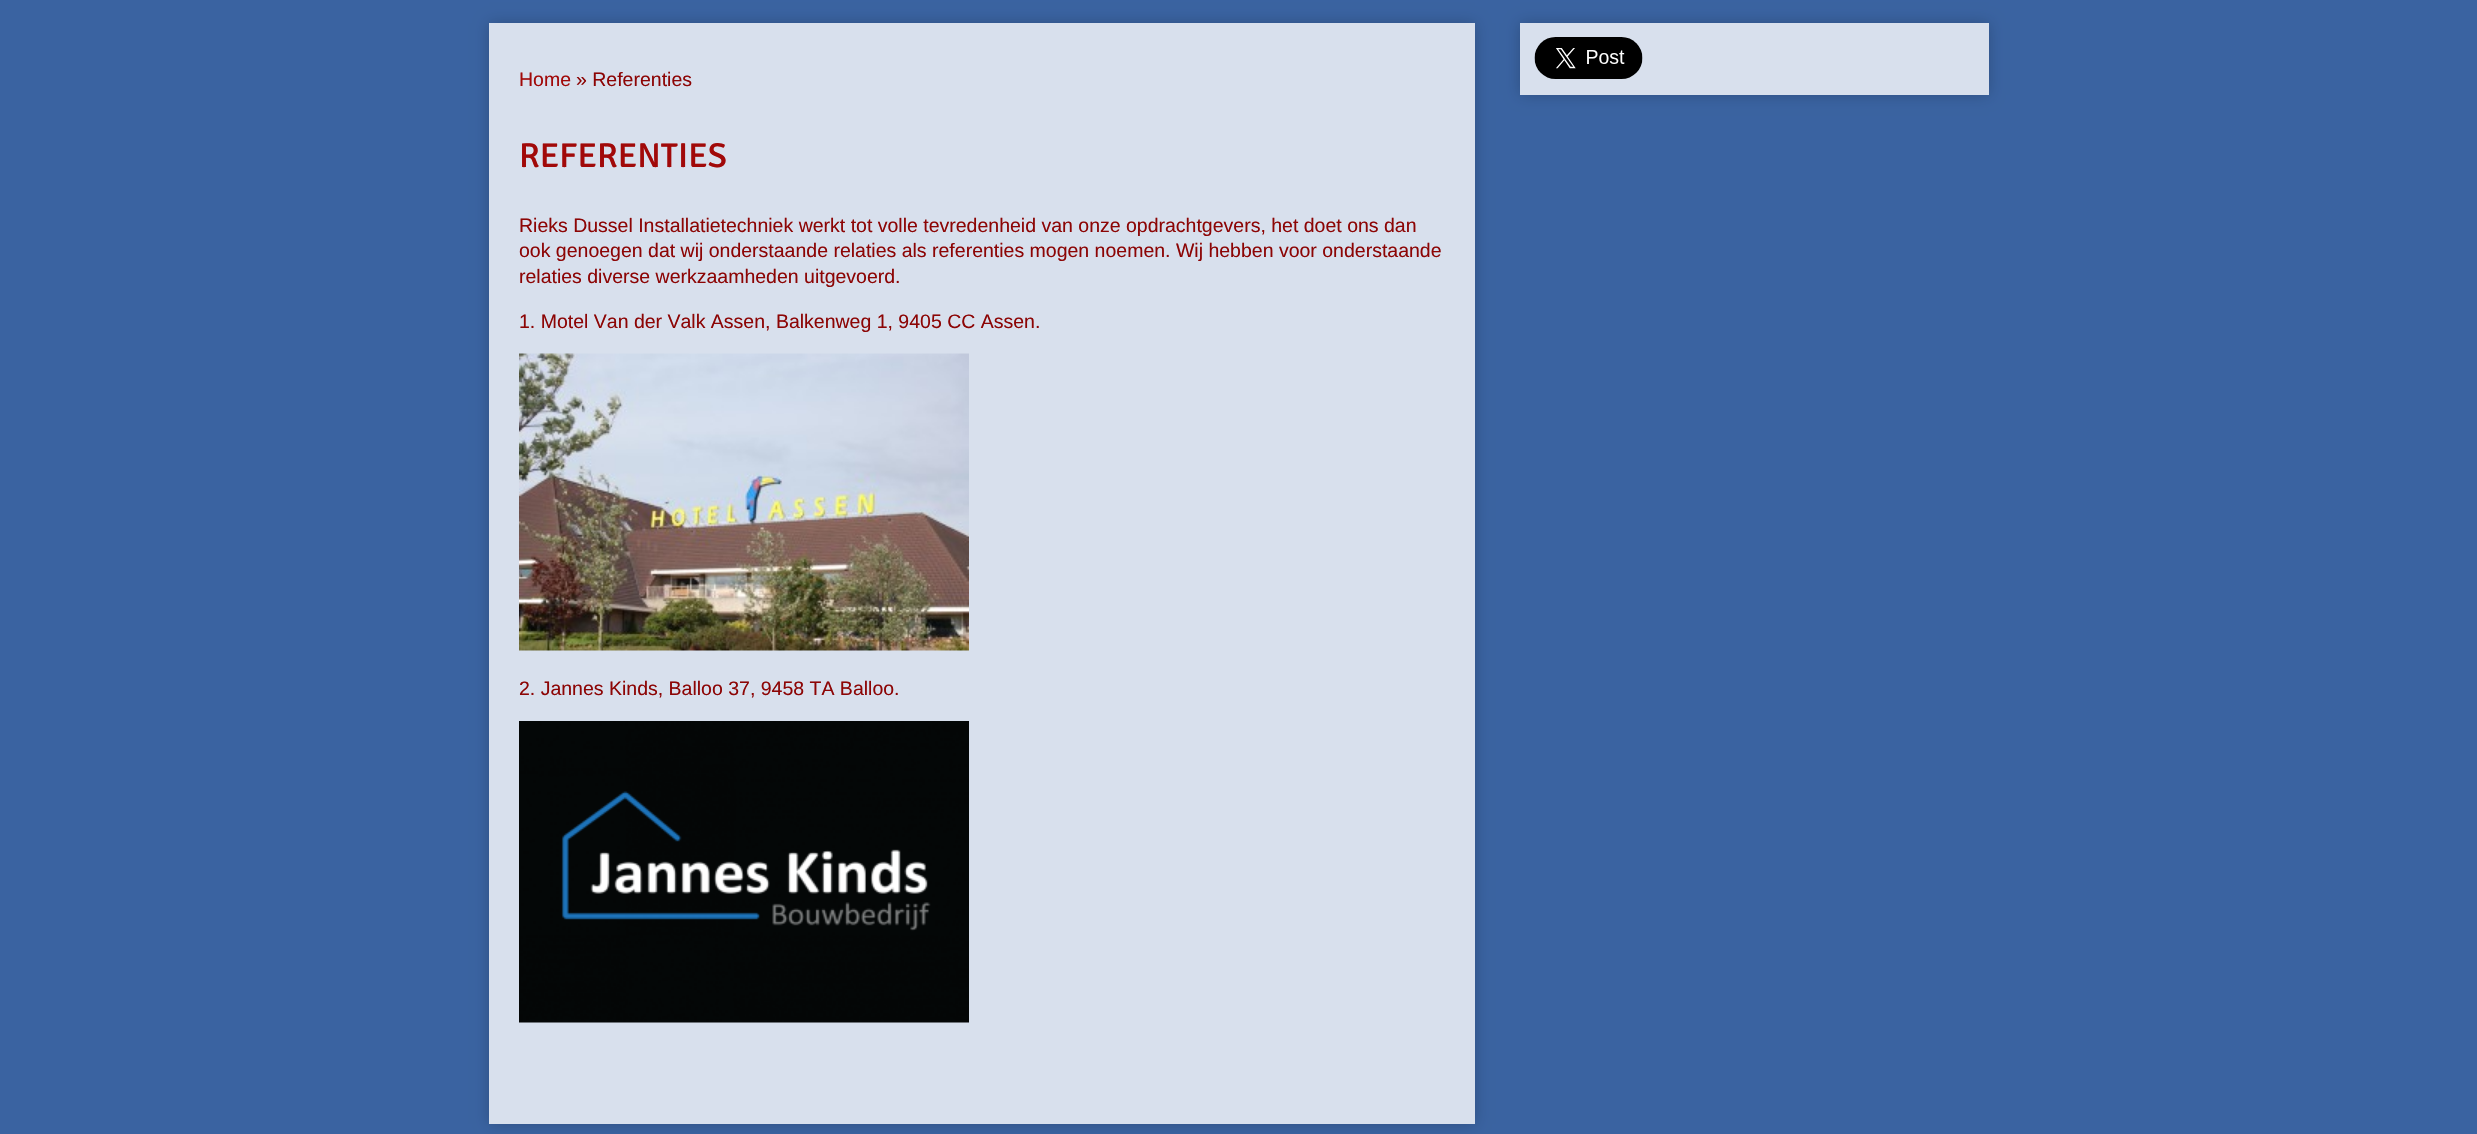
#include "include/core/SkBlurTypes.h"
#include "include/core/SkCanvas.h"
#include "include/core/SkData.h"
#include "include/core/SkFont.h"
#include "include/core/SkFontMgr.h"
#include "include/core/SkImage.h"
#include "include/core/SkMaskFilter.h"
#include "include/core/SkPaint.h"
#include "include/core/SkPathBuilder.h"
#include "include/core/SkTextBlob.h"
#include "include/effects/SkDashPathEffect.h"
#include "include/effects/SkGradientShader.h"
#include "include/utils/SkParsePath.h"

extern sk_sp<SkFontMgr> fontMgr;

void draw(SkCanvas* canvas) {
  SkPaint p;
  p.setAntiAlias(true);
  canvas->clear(SkColorSetRGB(58, 99, 161));
  canvas->save();
  canvas->clipPath(SkPathBuilder(SkPathFillType::kEvenOdd).moveTo(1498, 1).lineTo(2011, 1).lineTo(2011, 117).lineTo(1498, 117).close().moveTo(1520, 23).lineTo(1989, 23).lineTo(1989, 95).lineTo(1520, 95).close().detach(), true);
  p.setColor(SkColorSetARGB(51, 0, 0, 0));
  p.setMaskFilter(SkMaskFilter::MakeBlur(kNormal_SkBlurStyle, 7));
  canvas->drawRect(SkRect::MakeLTRB(1520, 23, 1989, 95), p);
  p.setMaskFilter(nullptr);
  canvas->restore();
  p.setColor(SkColorSetARGB(204, 255, 255, 255));
  canvas->drawRect(SkRect::MakeLTRB(1520, 23, 1989, 95), p);
  canvas->drawImageRect(SkImages::DeferredFromEncodedData(SkData::MakeFromFileName("images/1.png")), SkRect::MakeLTRB(1534, 37, 1643, 79), SkSamplingOptions());
  canvas->save();
  canvas->clipPath(SkPathBuilder(SkPathFillType::kEvenOdd).moveTo(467, 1).lineTo(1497, 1).lineTo(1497, 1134).lineTo(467, 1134).close().moveTo(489, 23).lineTo(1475, 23).lineTo(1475, 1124).lineTo(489, 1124).close().detach(), true);
  p.setColor(SkColorSetARGB(51, 0, 0, 0));
  p.setMaskFilter(SkMaskFilter::MakeBlur(kNormal_SkBlurStyle, 7));
  canvas->drawRect(SkRect::MakeLTRB(489, 23, 1475, 1124), p);
  p.setMaskFilter(nullptr);
  canvas->restore();
  p.setColor(SkColorSetARGB(204, 255, 255, 255));
  canvas->drawRect(SkRect::MakeLTRB(489, 23, 1475, 1124), p);
  canvas->drawImageRect(SkImages::DeferredFromEncodedData(SkData::MakeFromFileName("images/2.png")), SkRect::MakeLTRB(519, 353, 969, 651), SkSamplingOptions());
  canvas->drawImageRect(SkImages::DeferredFromEncodedData(SkData::MakeFromFileName("images/3.png")), SkRect::MakeLTRB(519, 721, 969, 1023), SkSamplingOptions());
  SkFont font1(fontMgr->matchFamilyStyle("Liberation Sans", SkFontStyle::Normal()), 19.5f);
  font1.setSubpixel(true);
  p.setColor(SkColorSetRGB(161, 9, 9));
  canvas->drawString("Home", 519, 86, font1, p);
  p.setColor(SkColorSetRGB(140, 5, 5));
  canvas->drawString("» Referenties", 576, 86, font1, p);
  SkFont font2(fontMgr->matchFamilyStyle("Signika Negative", SkFontStyle(300, SkFontStyle::kNormal_Width, SkFontStyle::kUpright_Slant)), 34.5f);
  font2.setSubpixel(true);
  p.setColor(SkColorSetRGB(161, 9, 9));
  canvas->drawString("REFERENTIES", 519, 167, font2, p);
  p.setColor(SkColorSetRGB(140, 5, 5));
  canvas->drawString("Rieks Dussel Installatietechniek werkt tot volle tevredenheid van onze opdrachtgevers, het doet ons dan", 519, 232, font1, p);
  canvas->drawString("ook genoegen dat wij onderstaande relaties als referenties mogen noemen. Wij hebben voor onderstaande", 519, 257, font1, p);
  canvas->drawString("relaties diverse werkzaamheden uitgevoerd.", 519, 283, font1, p);
  canvas->drawString("1. Motel Van der Valk Assen, Balkenweg 1, 9405 CC Assen.", 519, 328, font1, p);
  canvas->drawString("2. Jannes Kinds, Balloo 37, 9458 TA Balloo.", 519, 695, font1, p);
}
